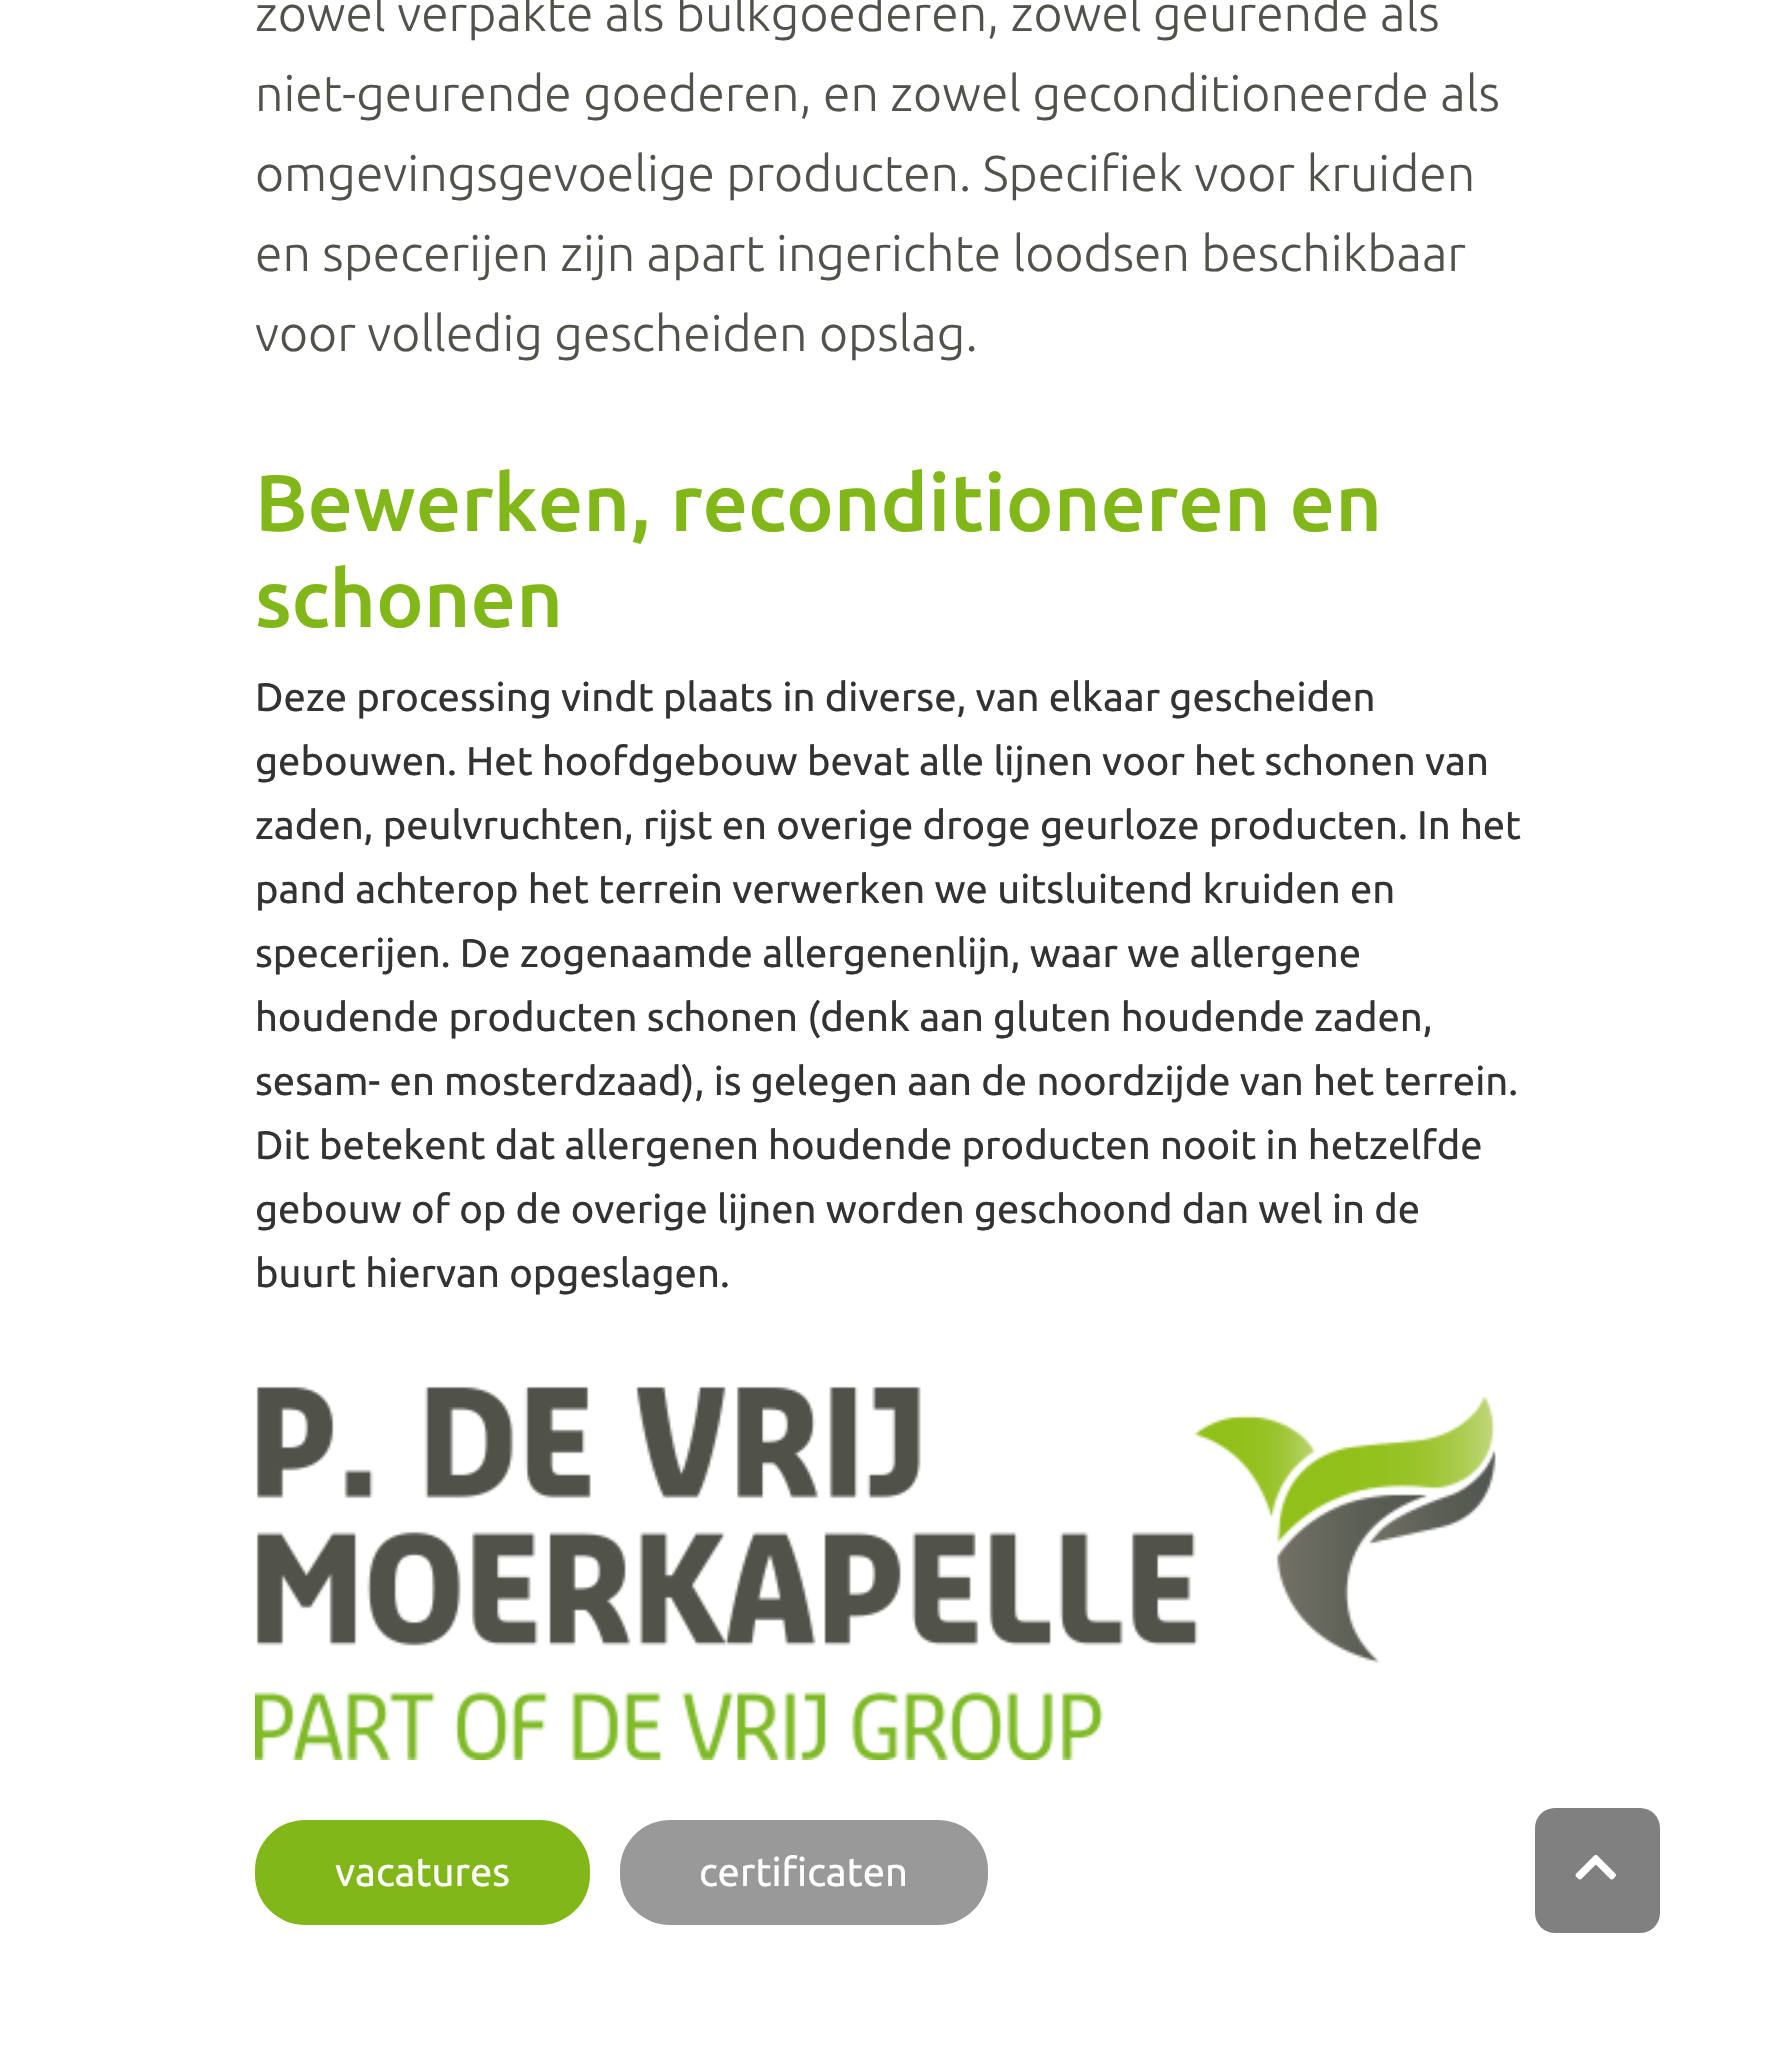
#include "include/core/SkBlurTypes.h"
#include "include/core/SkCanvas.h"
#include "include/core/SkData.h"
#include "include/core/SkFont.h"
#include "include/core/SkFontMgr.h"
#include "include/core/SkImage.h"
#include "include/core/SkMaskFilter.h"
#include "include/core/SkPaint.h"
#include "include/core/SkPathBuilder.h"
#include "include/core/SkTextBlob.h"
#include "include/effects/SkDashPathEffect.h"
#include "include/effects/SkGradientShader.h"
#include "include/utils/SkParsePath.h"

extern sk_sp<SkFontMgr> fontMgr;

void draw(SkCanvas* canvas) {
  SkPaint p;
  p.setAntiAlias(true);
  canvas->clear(SK_ColorWHITE);
  canvas->drawImageRect(SkImages::DeferredFromEncodedData(SkData::MakeFromFileName("images/1.png")), SkRect::MakeLTRB(255, 1386, 1496, 1760), SkSamplingOptions());
  p.setColor(SkColorSetRGB(130, 183, 26));
  canvas->drawRoundRect(SkRect::MakeLTRB(255, 1820, 590, 1925), 50, 50, p);
  p.setColor(SkColorSetRGB(153, 153, 153));
  canvas->drawRoundRect(SkRect::MakeLTRB(620, 1820, 988, 1925), 50, 50, p);
  p.setColor(SkColorSetRGB(128, 128, 128));
  canvas->drawRoundRect(SkRect::MakeLTRB(1535, 1808, 1660, 1933), 20, 20, p);
  canvas->drawImageRect(SkImages::DeferredFromEncodedData(SkData::MakeFromFileName("images/2.png")), SkRect::MakeLTRB(1575, 1854, 1616, 1880), SkSamplingOptions());
  SkFont font1(fontMgr->matchFamilyStyle("Ubuntu", SkFontStyle(300, SkFontStyle::kNormal_Width, SkFontStyle::kUpright_Slant)), 50);
  font1.setSubpixel(true);
  p.setColor(SkColorSetRGB(81, 83, 74));
  canvas->drawString("zowel verpakte als bulkgoederen, zowel geurende als", 255, 31, font1, p);
  canvas->drawString("niet-geurende goederen, en zowel geconditioneerde als", 255, 111, font1, p);
  canvas->drawString("omgevingsgevoelige producten. Specifiek voor kruiden", 255, 191, font1, p);
  canvas->drawString("en specerijen zijn apart ingerichte loodsen beschikbaar", 255, 271, font1, p);
  canvas->drawString("voor volledig gescheiden opslag.", 255, 351, font1, p);
  SkFont font2(fontMgr->matchFamilyStyle("Ubuntu", SkFontStyle(500, SkFontStyle::kNormal_Width, SkFontStyle::kUpright_Slant)), 80);
  font2.setSubpixel(true);
  p.setColor(SkColorSetRGB(130, 183, 26));
  canvas->drawString("Bewerken, reconditioneren en", 255, 531, font2, p);
  canvas->drawString("schonen", 255, 627, font2, p);
  SkFont font3(fontMgr->matchFamilyStyle("Ubuntu", SkFontStyle::Normal()), 40);
  font3.setSubpixel(true);
  p.setColor(SkColorSetRGB(51, 51, 51));
  canvas->drawString("Deze processing vindt plaats in diverse, van elkaar gescheiden", 255, 711, font3, p);
  canvas->drawString("gebouwen. Het hoofdgebouw bevat alle lijnen voor het schonen van", 255, 775, font3, p);
  canvas->drawString("zaden, peulvruchten, rijst en overige droge geurloze producten. In het", 255, 839, font3, p);
  canvas->drawString("pand achterop het terrein verwerken we uitsluitend kruiden en", 255, 903, font3, p);
  canvas->drawString("specerijen. De zogenaamde allergenenlijn, waar we allergene", 255, 967, font3, p);
  canvas->drawString("houdende producten schonen (denk aan gluten houdende zaden,", 255, 1031, font3, p);
  canvas->drawString("sesam- en mosterdzaad), is gelegen aan de noordzijde van het terrein.", 255, 1095, font3, p);
  canvas->drawString("Dit betekent dat allergenen houdende producten nooit in hetzelfde", 255, 1159, font3, p);
  canvas->drawString("gebouw of op de overige lijnen worden geschoond dan wel in de", 255, 1223, font3, p);
  canvas->drawString("buurt hiervan opgeslagen.", 255, 1287, font3, p);
  p.setColor(SK_ColorWHITE);
  canvas->drawString("vacatures", 335, 1886, font3, p);
  canvas->drawString("certificaten", 699, 1886, font3, p);
}
